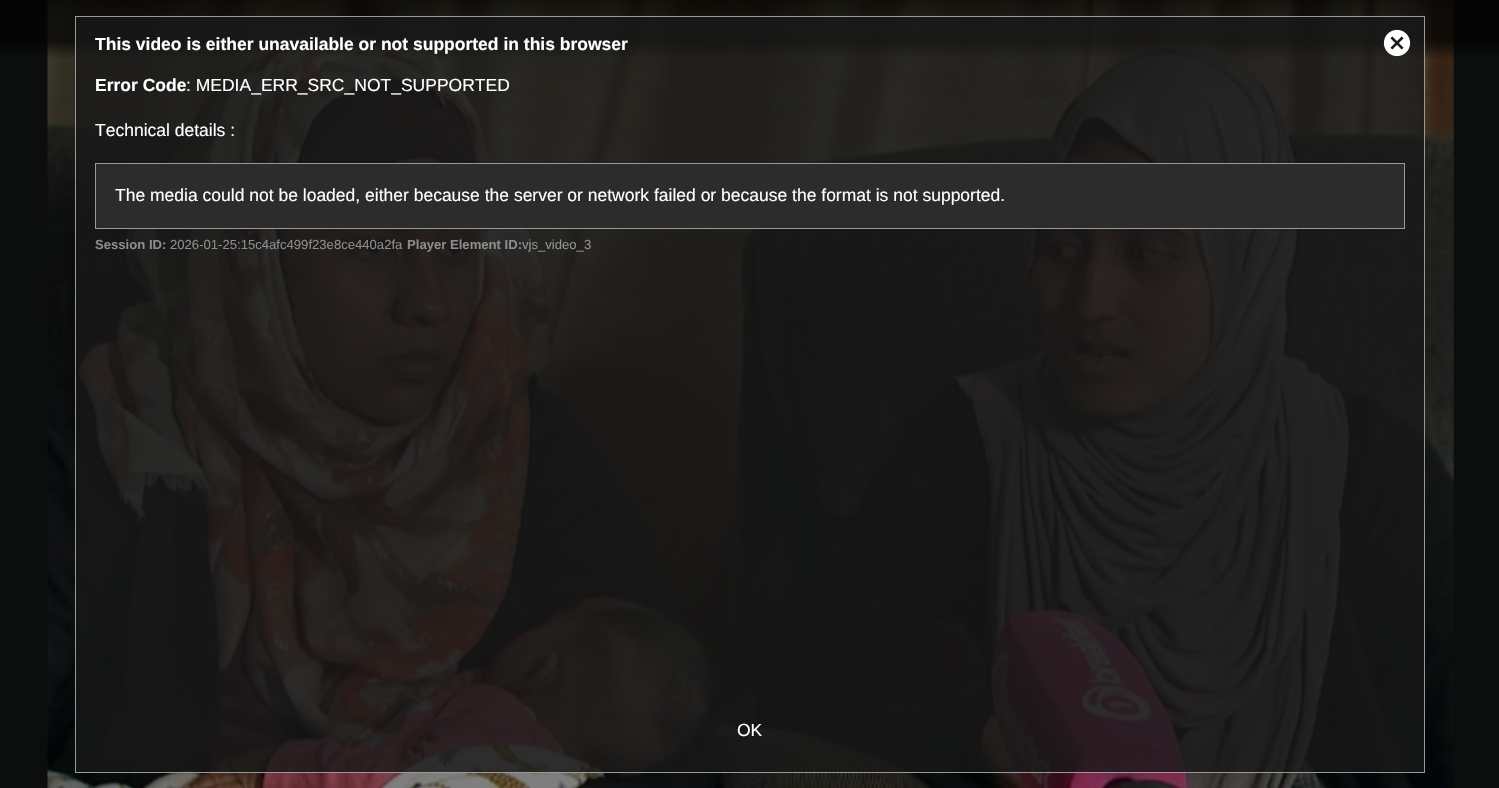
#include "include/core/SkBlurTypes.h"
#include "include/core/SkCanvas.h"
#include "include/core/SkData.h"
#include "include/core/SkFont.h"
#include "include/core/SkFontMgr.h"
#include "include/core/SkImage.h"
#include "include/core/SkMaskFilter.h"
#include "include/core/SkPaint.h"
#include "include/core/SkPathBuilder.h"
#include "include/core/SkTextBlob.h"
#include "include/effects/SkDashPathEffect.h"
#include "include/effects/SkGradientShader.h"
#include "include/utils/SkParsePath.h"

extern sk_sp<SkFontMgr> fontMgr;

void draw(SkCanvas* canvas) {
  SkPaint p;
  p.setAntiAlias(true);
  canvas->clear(SkColorSetRGB(11, 14, 12));
  canvas->drawImageRect(SkImages::DeferredFromEncodedData(SkData::MakeFromFileName("images/1.png")), SkRect::MakeLTRB(47, 0, 1454, 788), SkSamplingOptions());
  {
    const SkColor colors[] = {SkColorSetARGB(204, 0, 0, 0), SkColorSetARGB(179, 0, 0, 0), SkColorSetARGB(179, 0, 0, 0), SkColorSetARGB(0, 0, 0, 0)};
    const float stops[] = {0, 0.3f, 0.7f, 1};
    const SkPoint ends[] = {{750, 0}, {750, 59}};
    p.setShader(SkGradientShader::MakeLinear(ends, colors, stops, 4, SkTileMode::kClamp));
    p.setAlpha(255);
  }
  canvas->drawRect(SkRect::MakeLTRB(0, 0, 1499, 58), p);
  p.setShader(nullptr);
  p.setColor(SkColorSetARGB(204, 24, 24, 24));
  canvas->drawRect(SkRect::MakeLTRB(75.5f, 16.5f, 1424.5f, 772.5f), p);
  p.setStyle(SkPaint::kStroke_Style);
  p.setStrokeWidth(1);
  p.setColor(SkColorSetRGB(153, 153, 153));
  canvas->drawRect(SkRect::MakeLTRB(75.5f, 16.5f, 1424.5f, 772.5f), p);
  p.setStyle(SkPaint::kFill_Style);
  p.setColor(SkColorSetRGB(44, 44, 44));
  canvas->drawRect(SkRect::MakeLTRB(95.5f, 163.5f, 1404.5f, 228.5f), p);
  p.setStyle(SkPaint::kStroke_Style);
  p.setColor(SkColorSetRGB(153, 153, 153));
  canvas->drawRect(SkRect::MakeLTRB(95.5f, 163.5f, 1404.5f, 228.5f), p);
  canvas->drawImageRect(SkImages::DeferredFromEncodedData(SkData::MakeFromFileName("images/2.png")), SkRect::MakeLTRB(1383, 29, 1411, 57), SkSamplingOptions());
  SkFont font1(fontMgr->matchFamilyStyle("Liberation Sans", SkFontStyle::Bold()), 17.5f);
  font1.setSubpixel(true);
  p.setStyle(SkPaint::kFill_Style);
  p.setColor(SK_ColorWHITE);
  canvas->drawString("This video is either unavailable or not supported in this browser", 95, 50, font1, p);
  canvas->drawString("Error Code", 95, 91, font1, p);
  SkFont font2(fontMgr->matchFamilyStyle("Liberation Sans", SkFontStyle::Normal()), 17.5f);
  font2.setSubpixel(true);
  canvas->drawString(": MEDIA_ERR_SRC_NOT_SUPPORTED", 186, 91, font2, p);
  canvas->drawString("Technical details :", 95, 136, font2, p);
  canvas->drawString("The media could not be loaded, either because the server or network failed or because the format is not supported.", 115, 201, font2, p);
  SkFont font3(fontMgr->matchFamilyStyle("Liberation Sans", SkFontStyle::Bold()), 13.1f);
  font3.setSubpixel(true);
  p.setColor(SkColorSetRGB(140, 140, 140));
  canvas->drawString("Session ID:", 95, 249, font3, p);
  SkFont font4(fontMgr->matchFamilyStyle("Liberation Sans", SkFontStyle::Normal()), 13.1f);
  font4.setSubpixel(true);
  canvas->drawString("2026-01-25:15c4afc499f23e8ce440a2fa", 170, 249, font4, p);
  canvas->drawString("Player Element ID:", 407, 249, font3, p);
  p.setColor(SkColorSetRGB(146, 146, 144));
  canvas->drawString("vjs_video_3", 522, 249, font4, p);
  p.setColor(SK_ColorWHITE);
  canvas->drawString("OK", 737, 736, font2, p);
}
